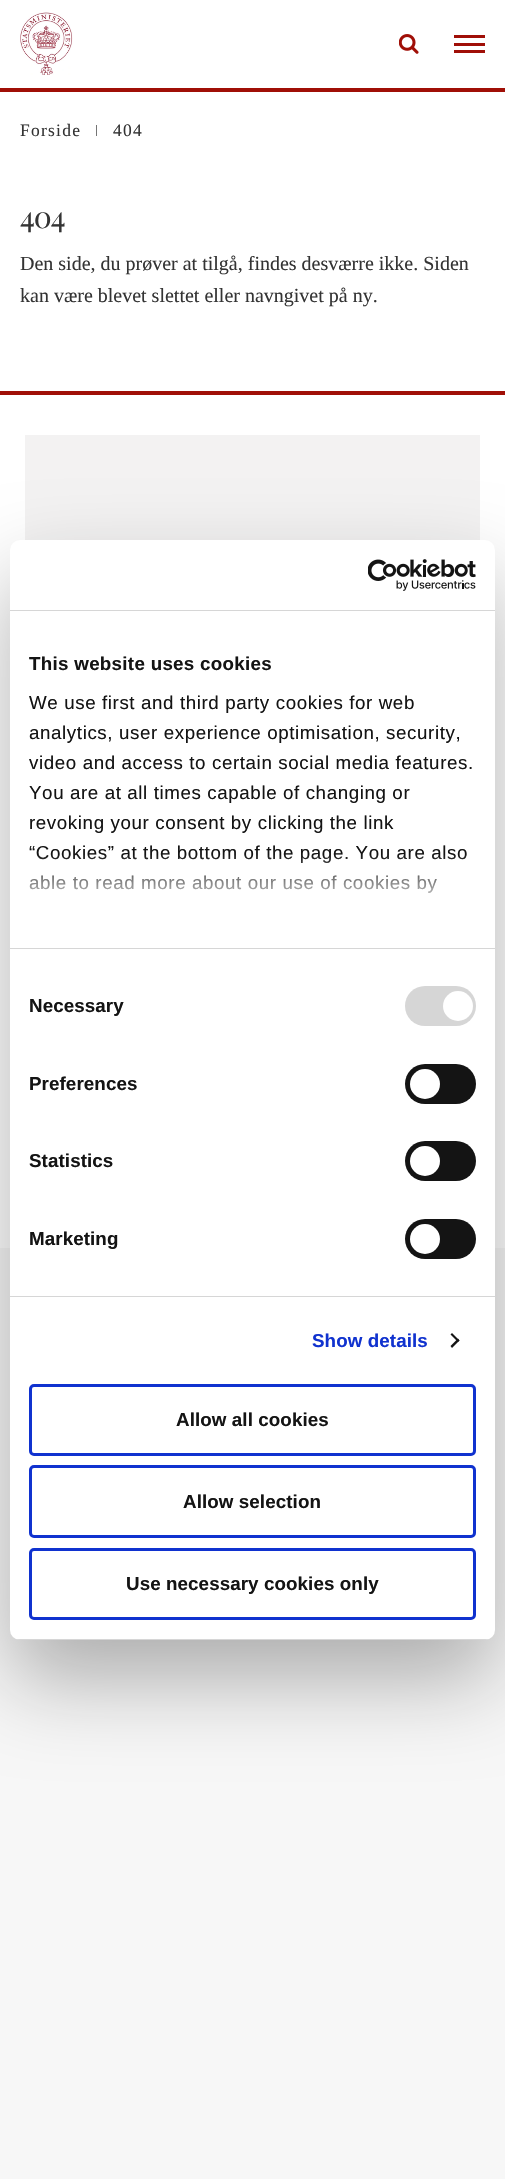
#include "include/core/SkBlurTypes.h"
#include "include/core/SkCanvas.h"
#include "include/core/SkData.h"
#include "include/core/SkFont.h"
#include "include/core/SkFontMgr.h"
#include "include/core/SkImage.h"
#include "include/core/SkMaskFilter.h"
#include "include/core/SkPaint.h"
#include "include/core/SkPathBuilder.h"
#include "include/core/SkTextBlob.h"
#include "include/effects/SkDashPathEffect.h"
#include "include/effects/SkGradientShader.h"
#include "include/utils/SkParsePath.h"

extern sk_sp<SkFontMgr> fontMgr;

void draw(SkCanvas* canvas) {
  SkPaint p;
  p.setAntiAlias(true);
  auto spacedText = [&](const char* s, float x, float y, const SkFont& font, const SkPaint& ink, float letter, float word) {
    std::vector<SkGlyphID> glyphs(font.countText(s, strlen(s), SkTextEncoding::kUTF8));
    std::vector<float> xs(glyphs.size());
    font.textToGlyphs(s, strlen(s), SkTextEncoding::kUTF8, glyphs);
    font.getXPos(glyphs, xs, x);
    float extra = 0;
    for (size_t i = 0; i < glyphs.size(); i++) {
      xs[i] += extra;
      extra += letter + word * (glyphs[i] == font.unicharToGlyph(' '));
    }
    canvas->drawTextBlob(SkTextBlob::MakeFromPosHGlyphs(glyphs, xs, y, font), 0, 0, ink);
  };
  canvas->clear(SkColorSetRGB(247, 247, 247));
  p.setColor(SK_ColorWHITE);
  canvas->drawRect(SkRect::MakeLTRB(0, 0, 505, 1248), p);
  p.setColor(SkColorSetRGB(160, 15, 7));
  canvas->drawRect(SkRect::MakeLTRB(0, 88, 505, 92), p);
  canvas->drawImageRect(SkImages::DeferredFromEncodedData(SkData::MakeFromFileName("images/1.png")), SkRect::MakeLTRB(20, 12, 73, 75), SkSamplingOptions());
  canvas->drawImageRect(SkImages::DeferredFromEncodedData(SkData::MakeFromFileName("images/2.png")), SkRect::MakeLTRB(399, 34, 419, 54), SkSamplingOptions());
  canvas->drawRect(SkRect::MakeLTRB(454, 43, 485, 46), p);
  canvas->drawRect(SkRect::MakeLTRB(454, 35, 485, 38), p);
  canvas->drawRect(SkRect::MakeLTRB(454, 50, 485, 53), p);
  p.setColor(SkColorSetRGB(117, 117, 117));
  canvas->drawRect(SkRect::MakeLTRB(96, 125, 97, 136), p);
  p.setColor(SkColorSetRGB(160, 15, 7));
  canvas->drawRect(SkRect::MakeLTRB(0, 391, 505, 395), p);
  p.setColor(SkColorSetRGB(243, 242, 242));
  canvas->drawRect(SkRect::MakeLTRB(25, 435, 480, 540), p);
  p.setColor(SkColorSetARGB(77, 0, 0, 0));
  p.setMaskFilter(SkMaskFilter::MakeBlur(kNormal_SkBlurStyle, 42.5f));
  canvas->drawRoundRect(SkRect::MakeLTRB(10, 580, 495, 1680), 10, 10, p);
  p.setMaskFilter(nullptr);
  p.setColor(SK_ColorWHITE);
  canvas->drawRoundRect(SkRect::MakeLTRB(10, 540, 495, 1640), 10, 10, p);
  p.setColor(SkColorSetRGB(214, 214, 214));
  canvas->drawRect(SkRect::MakeLTRB(10, 610, 495, 611), p);
  canvas->drawImageRect(SkImages::DeferredFromEncodedData(SkData::MakeFromFileName("images/3.png")), SkRect::MakeLTRB(368, 559, 476, 591), SkSamplingOptions());
  canvas->drawRect(SkRect::MakeLTRB(10, 948, 495, 949), p);
  canvas->drawRect(SkRect::MakeLTRB(10, 1296, 495, 1297), p);
  canvas->drawRoundRect(SkRect::MakeLTRB(405, 986, 476, 1026), 20, 20, p);
  p.setColor(SK_ColorWHITE);
  canvas->drawCircle(458, 1006, 15, p);
  p.setColor(SkColorSetRGB(20, 20, 20));
  canvas->drawRoundRect(SkRect::MakeLTRB(405, 1064, 476, 1104), 20, 20, p);
  p.setColor(SK_ColorWHITE);
  canvas->drawCircle(425, 1084, 15, p);
  p.setColor(SkColorSetRGB(20, 20, 20));
  canvas->drawRoundRect(SkRect::MakeLTRB(405, 1141, 476, 1181), 20, 20, p);
  p.setColor(SK_ColorWHITE);
  canvas->drawCircle(425, 1161, 15, p);
  p.setColor(SkColorSetRGB(20, 20, 20));
  canvas->drawRoundRect(SkRect::MakeLTRB(405, 1219, 476, 1259), 20, 20, p);
  p.setColor(SK_ColorWHITE);
  canvas->drawCircle(425, 1239, 15, p);
  p.setColor(SkColorSetRGB(20, 20, 20));
  canvas->drawPath(SkPathBuilder().moveTo(452, 1333).lineTo(459.5f, 1340.5f).lineTo(458, 1342).lineTo(450.5f, 1334.5f).close().detach(), p);
  canvas->drawPath(SkPathBuilder().moveTo(458, 1338.5f).lineTo(459.5f, 1340.5f).lineTo(452, 1348).lineTo(450.5f, 1346).close().detach(), p);
  canvas->save();
  canvas->clipPath(SkPathBuilder().moveTo(20, 540).lineTo(485, 540).cubicTo(490.5f, 540, 495, 544.5f, 495, 550).lineTo(495, 1630).cubicTo(495, 1635.5f, 490.5f, 1640, 485, 1640).lineTo(20, 1640).cubicTo(14.5f, 1640, 10, 1635.5f, 10, 1630).lineTo(10, 550).cubicTo(10, 544.5f, 14.5f, 540, 20, 540).close().detach(), true);
  p.setColor(SkColorSetRGB(214, 214, 214));
  canvas->drawRect(SkRect::MakeLTRB(10, 1639, 495, 1640), p);
  canvas->restore();
  p.setStyle(SkPaint::kStroke_Style);
  p.setStrokeWidth(3);
  p.setColor(SkColorSetRGB(16, 50, 207));
  canvas->drawRoundRect(SkRect::MakeLTRB(30.5f, 1385.5f, 474.5f, 1454.5f), 3.5f, 3.5f, p);
  canvas->drawRoundRect(SkRect::MakeLTRB(30.5f, 1466.5f, 474.5f, 1536.5f), 3.5f, 3.5f, p);
  canvas->drawRoundRect(SkRect::MakeLTRB(30.5f, 1549.5f, 474.5f, 1618.5f), 3.5f, 3.5f, p);
  SkFont font1(fontMgr->matchFamilyStyle("Liberation Serif", SkFontStyle::Normal()), 17.5f);
  font1.setSubpixel(true);
  p.setStyle(SkPaint::kFill_Style);
  p.setColor(SkColorSetRGB(52, 52, 52));
  spacedText("Forside", 20, 136, font1, p, 1.25f, 0);
  spacedText("404", 113, 136, font1, p, 1.25f, 0);
  SkFont font2(fontMgr->matchFamilyStyle("Playfair Display", SkFontStyle::Normal()), 30);
  font2.setSubpixel(true);
  spacedText("404", 20, 228, font2, p, -1, 0);
  SkFont font3(fontMgr->matchFamilyStyle("Liberation Serif", SkFontStyle::Normal()), 20);
  font3.setSubpixel(true);
  canvas->drawString("Den side, du prøver at tilgå, findes desværre ikke. Siden", 20, 270, font3, p);
  canvas->drawString("kan være blevet slettet eller navngivet på ny.", 20, 302, font3, p);
  SkFont font4(fontMgr->matchFamilyStyle("Liberation Sans", SkFontStyle::Bold()), 18.75f);
  font4.setSubpixel(true);
  p.setColor(SkColorSetRGB(20, 20, 20));
  spacedText("This website uses cookies", 29, 670, font4, p, 0.3f, 0);
  SkFont font5(fontMgr->matchFamilyStyle("Liberation Sans", SkFontStyle::Normal()), 18.75f);
  font5.setSubpixel(true);
  spacedText("We use first and third party cookies for web", 29, 709, font5, p, 0.6f, 0);
  spacedText("analytics, user experience optimisation, security,", 29, 739, font5, p, 0.6f, 0);
  spacedText("video and access to certain social media features.", 29, 769, font5, p, 0.6f, 0);
  spacedText("You are at all times capable of changing or", 29, 799, font5, p, 0.6f, 0);
  spacedText("revoking your consent by clicking the link", 29, 829, font5, p, 0.6f, 0);
  spacedText("“Cookies” at the bottom of the page. You are also", 29, 859, font5, p, 0.6f, 0);
  spacedText("able to read more about our use of cookies by", 29, 889, font5, p, 0.6f, 0);
  {
    const SkColor colors[] = {SK_ColorWHITE, SkColorSetARGB(204, 255, 255, 255), SkColorSetARGB(0, 255, 255, 255)};
    const float stops[] = {0, 0.5f, 1};
    const SkPoint ends[] = {{244, 948}, {244, 854}};
    p.setShader(SkGradientShader::MakeLinear(ends, colors, stops, 3, SkTileMode::kClamp));
    p.setAlpha(255);
  }
  canvas->drawRect(SkRect::MakeLTRB(29, 855, 468, 893), p);
  p.setShader(nullptr);
  p.setColor(SkColorSetRGB(20, 20, 20));
  spacedText("Necessary", 29, 1012, font4, p, 0.1f, 0);
  spacedText("Preferences", 29, 1090, font4, p, 0.1f, 0);
  spacedText("Statistics", 29, 1167, font4, p, 0.1f, 0);
  spacedText("Marketing", 29, 1245, font4, p, 0.1f, 0);
  p.setColor(SkColorSetRGB(16, 50, 207));
  spacedText("Show details", 312, 1347, font4, p, 0.1f, 0);
  p.setColor(SkColorSetRGB(20, 20, 20));
  spacedText("Allow all cookies", 176, 1426, font4, p, 0.1f, 0);
  spacedText("Allow selection", 183, 1508, font4, p, 0.1f, 0);
  spacedText("Use necessary cookies only", 126, 1590, font4, p, 0.1f, 0);
}
